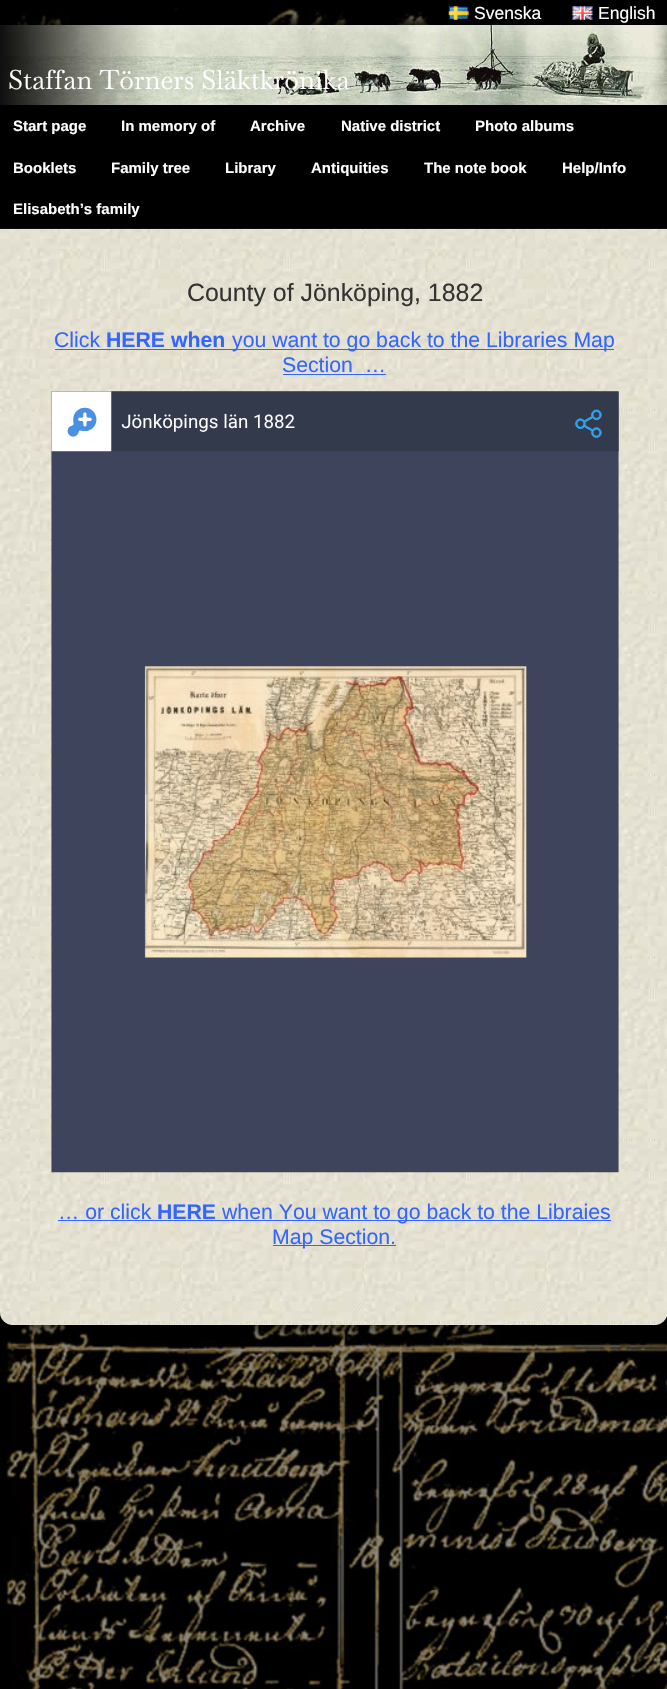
#include "include/core/SkBlurTypes.h"
#include "include/core/SkCanvas.h"
#include "include/core/SkData.h"
#include "include/core/SkFont.h"
#include "include/core/SkFontMgr.h"
#include "include/core/SkImage.h"
#include "include/core/SkMaskFilter.h"
#include "include/core/SkPaint.h"
#include "include/core/SkPathBuilder.h"
#include "include/core/SkTextBlob.h"
#include "include/effects/SkDashPathEffect.h"
#include "include/effects/SkGradientShader.h"
#include "include/utils/SkParsePath.h"

extern sk_sp<SkFontMgr> fontMgr;

void draw(SkCanvas* canvas) {
  SkPaint p;
  p.setAntiAlias(true);
  canvas->clear(SK_ColorBLACK);
  canvas->drawImageRect(SkImages::DeferredFromEncodedData(SkData::MakeFromFileName("images/1.png")), SkRect::MakeLTRB(0, 7, 667, 1689), SkSamplingOptions());
  p.setColor(SK_ColorBLACK);
  p.setMaskFilter(SkMaskFilter::MakeBlur(kNormal_SkBlurStyle, 9));
  canvas->drawRect(SkRect::MakeLTRB(0, 25, 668, 105), p);
  p.setMaskFilter(nullptr);
  p.setMaskFilter(SkMaskFilter::MakeBlur(kNormal_SkBlurStyle, 9));
  canvas->drawRoundRect(SkRect::MakeLTRB(0, 25, 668, 105), 13, 13, p);
  p.setMaskFilter(nullptr);
  canvas->drawImageRect(SkImages::DeferredFromEncodedData(SkData::MakeFromFileName("images/2.png")), SkRect::MakeLTRB(448, 6, 469, 20), SkSamplingOptions());
  canvas->drawImageRect(SkImages::DeferredFromEncodedData(SkData::MakeFromFileName("images/3.png")), SkRect::MakeLTRB(572, 6, 593, 20), SkSamplingOptions());
  canvas->drawImageRect(SkImages::DeferredFromEncodedData(SkData::MakeFromFileName("images/4.png")), SkRect::MakeLTRB(0, 25, 667, 105), SkSamplingOptions());
  canvas->drawRect(SkRect::MakeLTRB(0, 105, 667, 229), p);
  p.setMaskFilter(SkMaskFilter::MakeBlur(kNormal_SkBlurStyle, 9));
  canvas->drawRoundRect(SkRect::MakeLTRB(0, 229, 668, 1325), 13, 13, p);
  p.setMaskFilter(nullptr);
  canvas->drawImageRect(SkImages::DeferredFromEncodedData(SkData::MakeFromFileName("images/5.png")), SkRect::MakeLTRB(0, 228, 667, 1325), SkSamplingOptions());
  p.setStyle(SkPaint::kStroke_Style);
  p.setStrokeWidth(1.2f);
  p.setPathEffect(SkDashPathEffect::Make({{3.75f, 2.29f}}, 0));
  canvas->drawPath(SkPathBuilder().moveTo(152, 189).lineTo(152, 229).detach(), p);
  p.setPathEffect(nullptr);
  p.setStyle(SkPaint::kFill_Style);
  p.setColor(SkColorSetRGB(51, 102, 255));
  canvas->drawRect(SkRect::MakeLTRB(55, 349, 614, 350), p);
  canvas->drawRect(SkRect::MakeLTRB(283, 374, 386, 375), p);
  canvas->drawImageRect(SkImages::DeferredFromEncodedData(SkData::MakeFromFileName("images/6.png")), SkRect::MakeLTRB(51, 391, 619, 1173), SkSamplingOptions());
  canvas->drawRect(SkRect::MakeLTRB(58, 1220, 611, 1221), p);
  canvas->drawRect(SkRect::MakeLTRB(273, 1245, 396, 1246), p);
  SkFont font1(fontMgr->matchFamilyStyle("Liberation Sans", SkFontStyle::Normal()), 17.5f);
  font1.setSubpixel(true);
  p.setColor(SK_ColorWHITE);
  canvas->drawString("Svenska", 474, 19, font1, p);
  canvas->drawString("English", 598, 19, font1, p);
  SkFont font2(fontMgr->matchFamilyStyle("Baskervville", SkFontStyle::Normal()), 26.75f);
  font2.setSubpixel(true);
  canvas->drawString("Staffan Törners Släktkrönika", 8, 89, font2, p);
  SkFont font3(fontMgr->matchFamilyStyle("Liberation Sans", SkFontStyle::Bold()), 15);
  font3.setSubpixel(true);
  canvas->drawString("Start page", 13, 131, font3, p);
  canvas->drawString("In memory of", 121, 131, font3, p);
  canvas->drawString("Archive", 250, 131, font3, p);
  canvas->drawString("Native district", 341, 131, font3, p);
  canvas->drawString("Photo albums", 475, 131, font3, p);
  canvas->drawString("Booklets", 13, 173, font3, p);
  canvas->drawString("Family tree", 111, 173, font3, p);
  canvas->drawString("Library", 225, 173, font3, p);
  canvas->drawString("Antiquities", 311, 173, font3, p);
  canvas->drawString("The note book", 424, 173, font3, p);
  canvas->drawString("Help/Info", 562, 173, font3, p);
  canvas->drawString("Elisabeth’s family", 13, 214, font3, p);
  SkFont font4(fontMgr->matchFamilyStyle("Liberation Sans", SkFontStyle::Normal()), 24.9f);
  font4.setSubpixel(true);
  p.setColor(SkColorSetRGB(51, 51, 51));
  canvas->drawString("County of Jönköping, 1882", 187, 301, font4, p);
  SkFont font5(fontMgr->matchFamilyStyle("Liberation Sans", SkFontStyle::Normal()), 21.25f);
  font5.setSubpixel(true);
  p.setColor(SkColorSetRGB(51, 102, 255));
  canvas->drawString("Click", 54, 347, font5, p);
  SkFont font6(fontMgr->matchFamilyStyle("Liberation Sans", SkFontStyle::Bold()), 21.25f);
  font6.setSubpixel(true);
  canvas->drawString("HERE when", 106, 347, font6, p);
  canvas->drawString("you want to go back to the Libraries Map", 232, 347, font5, p);
  canvas->drawString("Section  …", 282, 372, font5, p);
  canvas->drawString("… or click", 58, 1219, font5, p);
  canvas->drawString("HERE", 157, 1219, font6, p);
  canvas->drawString("when You want to go back to the Libraies", 222, 1219, font5, p);
  canvas->drawString("Map Section.", 272, 1244, font5, p);
}
